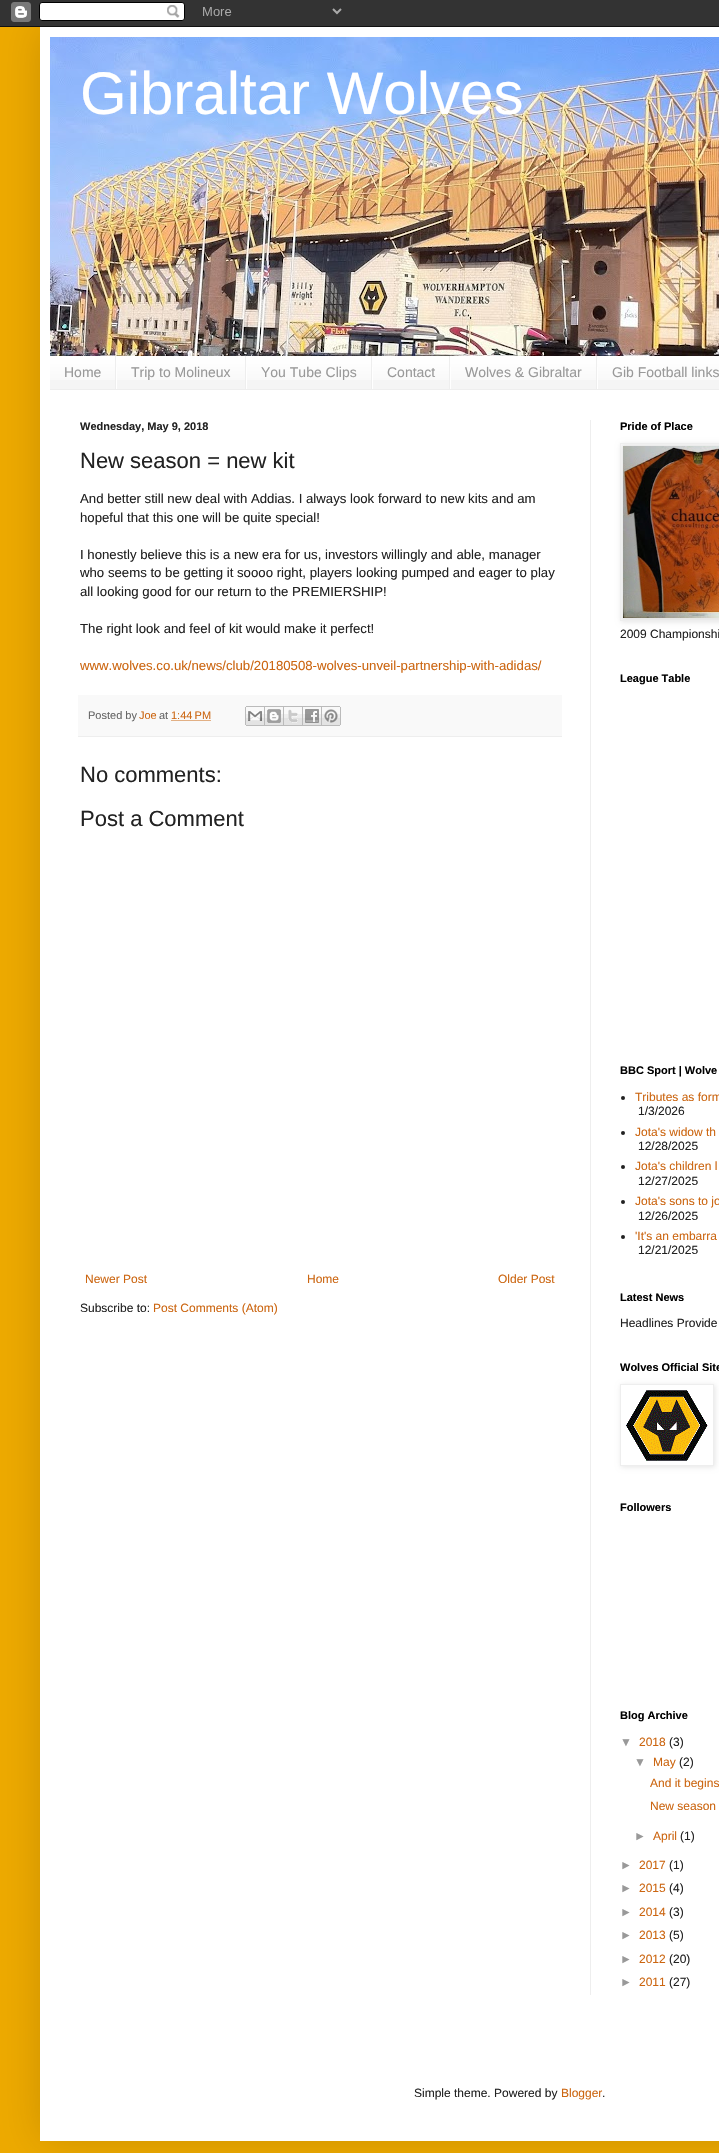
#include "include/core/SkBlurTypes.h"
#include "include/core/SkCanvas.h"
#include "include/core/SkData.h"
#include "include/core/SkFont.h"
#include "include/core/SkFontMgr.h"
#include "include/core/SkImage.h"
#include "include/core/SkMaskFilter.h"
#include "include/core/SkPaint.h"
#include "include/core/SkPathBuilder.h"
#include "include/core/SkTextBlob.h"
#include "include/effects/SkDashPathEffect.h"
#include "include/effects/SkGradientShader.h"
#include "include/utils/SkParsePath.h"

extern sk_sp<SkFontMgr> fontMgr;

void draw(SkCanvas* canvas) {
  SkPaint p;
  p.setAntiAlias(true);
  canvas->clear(SkColorSetRGB(238, 170, 0));
  p.setColor(SkColorSetARGB(38, 0, 0, 0));
  p.setMaskFilter(SkMaskFilter::MakeBlur(kNormal_SkBlurStyle, 20));
  canvas->drawRect(SkRect::MakeLTRB(40, 27, 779, 2141), p);
  p.setMaskFilter(nullptr);
  canvas->drawImageRect(SkImages::DeferredFromEncodedData(SkData::MakeFromFileName("images/1.png")), SkRect::MakeLTRB(0, 0, 719, 27), SkSamplingOptions());
  p.setColor(SK_ColorWHITE);
  canvas->drawRect(SkRect::MakeLTRB(40, 27, 719, 2141), p);
  canvas->drawImageRect(SkImages::DeferredFromEncodedData(SkData::MakeFromFileName("images/2.png")), SkRect::MakeLTRB(50, 37, 719, 356), SkSamplingOptions());
  p.setColor(SkColorSetRGB(245, 245, 245));
  canvas->drawRect(SkRect::MakeLTRB(50, 357, 719, 389), p);
  canvas->drawImageRect(SkImages::DeferredFromEncodedData(SkData::MakeFromFileName("images/3.png")), SkRect::MakeLTRB(50, 356, 719, 380), SkSamplingOptions());
  p.setColor(SkColorSetRGB(238, 238, 238));
  canvas->drawRect(SkRect::MakeLTRB(50, 389, 719, 390), p);
  canvas->drawRect(SkRect::MakeLTRB(115, 356, 116, 389), p);
  canvas->drawRect(SkRect::MakeLTRB(245, 356, 246, 389), p);
  p.setColor(SK_ColorWHITE);
  canvas->drawRect(SkRect::MakeLTRB(116, 367, 117, 389), p);
  p.setColor(SkColorSetRGB(238, 238, 238));
  canvas->drawRect(SkRect::MakeLTRB(371, 356, 372, 389), p);
  p.setColor(SK_ColorWHITE);
  canvas->drawRect(SkRect::MakeLTRB(246, 367, 247, 389), p);
  p.setColor(SkColorSetRGB(238, 238, 238));
  canvas->drawRect(SkRect::MakeLTRB(449, 356, 450, 389), p);
  p.setColor(SK_ColorWHITE);
  canvas->drawRect(SkRect::MakeLTRB(372, 367, 373, 389), p);
  p.setColor(SkColorSetRGB(238, 238, 238));
  canvas->drawRect(SkRect::MakeLTRB(596, 356, 597, 389), p);
  p.setColor(SK_ColorWHITE);
  canvas->drawRect(SkRect::MakeLTRB(450, 367, 451, 389), p);
  canvas->drawRect(SkRect::MakeLTRB(597, 367, 598, 389), p);
  p.setColor(SkColorSetRGB(238, 238, 238));
  canvas->drawRect(SkRect::MakeLTRB(590, 420, 591, 1995), p);
  p.setColor(SkColorSetRGB(249, 249, 249));
  canvas->drawRect(SkRect::MakeLTRB(78, 695, 562, 736), p);
  p.setColor(SkColorSetRGB(238, 238, 238));
  canvas->drawRect(SkRect::MakeLTRB(78, 736, 562, 737), p);
  p.setStyle(SkPaint::kStroke_Style);
  p.setStrokeWidth(1);
  p.setColor(SkColorSetRGB(204, 102, 17));
  p.setPathEffect(SkDashPathEffect::Make({{1, 1}}, 0));
  canvas->drawPath(SkPathBuilder().moveTo(171.5f, 720.5f).lineTo(211, 720.5f).detach(), p);
  p.setPathEffect(nullptr);
  canvas->drawImageRect(SkImages::DeferredFromEncodedData(SkData::MakeFromFileName("images/4.png")), SkRect::MakeLTRB(245, 706, 265, 726), SkSamplingOptions());
  canvas->drawImageRect(SkImages::DeferredFromEncodedData(SkData::MakeFromFileName("images/5.png")), SkRect::MakeLTRB(265, 706, 284, 726), SkSamplingOptions());
  canvas->drawImageRect(SkImages::DeferredFromEncodedData(SkData::MakeFromFileName("images/6.png")), SkRect::MakeLTRB(284, 706, 303, 726), SkSamplingOptions());
  canvas->drawImageRect(SkImages::DeferredFromEncodedData(SkData::MakeFromFileName("images/7.png")), SkRect::MakeLTRB(303, 706, 322, 726), SkSamplingOptions());
  canvas->drawImageRect(SkImages::DeferredFromEncodedData(SkData::MakeFromFileName("images/8.png")), SkRect::MakeLTRB(322, 706, 341, 726), SkSamplingOptions());
  p.setStyle(SkPaint::kFill_Style);
  p.setColor(SkColorSetARGB(26, 0, 0, 0));
  p.setMaskFilter(SkMaskFilter::MakeBlur(kNormal_SkBlurStyle, 2.5f));
  canvas->drawRect(SkRect::MakeLTRB(621, 444, 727, 622), p);
  p.setMaskFilter(nullptr);
  p.setStyle(SkPaint::kStroke_Style);
  p.setColor(SkColorSetRGB(238, 238, 238));
  canvas->drawRect(SkRect::MakeLTRB(620.5f, 443.5f, 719.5f, 620.5f), p);
  canvas->drawImageRect(SkImages::DeferredFromEncodedData(SkData::MakeFromFileName("images/9.png")), SkRect::MakeLTRB(623, 446, 719, 618), SkSamplingOptions());
  p.setStyle(SkPaint::kFill_Style);
  p.setColor(SkColorSetRGB(34, 34, 34));
  canvas->drawCircle(623, 1098, 2, p);
  canvas->drawCircle(623, 1133, 2, p);
  canvas->drawCircle(623, 1167, 2, p);
  canvas->drawCircle(623, 1202, 2, p);
  canvas->drawCircle(623, 1237, 2, p);
  canvas->save();
  canvas->clipPath(SkPathBuilder(SkPathFillType::kEvenOdd).moveTo(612, 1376).lineTo(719, 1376).lineTo(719, 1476).lineTo(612, 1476).close().moveTo(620, 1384).lineTo(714, 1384).lineTo(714, 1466).lineTo(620, 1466).close().detach(), true);
  p.setColor(SkColorSetARGB(26, 0, 0, 0));
  p.setMaskFilter(SkMaskFilter::MakeBlur(kNormal_SkBlurStyle, 2.5f));
  canvas->drawRect(SkRect::MakeLTRB(621, 1385, 715, 1467), p);
  p.setMaskFilter(nullptr);
  canvas->restore();
  p.setStyle(SkPaint::kStroke_Style);
  p.setColor(SkColorSetRGB(238, 238, 238));
  canvas->drawRect(SkRect::MakeLTRB(620.5f, 1384.5f, 713.5f, 1465.5f), p);
  canvas->drawImageRect(SkImages::DeferredFromEncodedData(SkData::MakeFromFileName("images/10.png")), SkRect::MakeLTRB(626, 1390, 708, 1461), SkSamplingOptions());
  SkFont font1(fontMgr->matchFamilyStyle("Liberation Sans", SkFontStyle::Normal()), 60);
  font1.setSubpixel(true);
  p.setStyle(SkPaint::kFill_Style);
  p.setColor(SK_ColorWHITE);
  canvas->drawString("Gibraltar Wolves", 80, 114, font1, p);
  SkFont font2(fontMgr->matchFamilyStyle("Liberation Sans", SkFontStyle::Normal()), 14);
  font2.setSubpixel(true);
  p.setColor(SkColorSetRGB(153, 153, 153));
  canvas->drawString("Home", 64, 377, font2, p);
  canvas->drawString("Trip to Molineux", 131, 377, font2, p);
  canvas->drawString("You Tube Clips", 261, 377, font2, p);
  canvas->drawString("Contact", 387, 377, font2, p);
  canvas->drawString("Wolves & Gibraltar", 465, 377, font2, p);
  canvas->drawString("Gib Football links", 612, 377, font2, p);
  SkFont font3(fontMgr->matchFamilyStyle("Liberation Sans", SkFontStyle::Bold()), 11);
  font3.setSubpixel(true);
  p.setColor(SkColorSetRGB(34, 34, 34));
  canvas->drawString("Wednesday, May 9, 2018", 80, 430, font3, p);
  SkFont font4(fontMgr->matchFamilyStyle("Liberation Sans", SkFontStyle::Normal()), 22);
  font4.setSubpixel(true);
  canvas->drawString("New season = new kit", 80, 468, font4, p);
  SkFont font5(fontMgr->matchFamilyStyle("Liberation Sans", SkFontStyle::Normal()), 13.2f);
  font5.setSubpixel(true);
  canvas->drawString("And better still new deal with Addias. I always look forward to new kits and am", 80, 503, font5, p);
  canvas->drawString("hopeful that this one will be quite special!", 80, 522, font5, p);
  canvas->drawString("I honestly believe this is a new era for us, investors willingly and able, manager", 80, 559, font5, p);
  canvas->drawString("who seems to be getting it soooo right, players looking pumped and eager to play", 80, 577, font5, p);
  canvas->drawString("all looking good for our return to the PREMIERSHIP!", 80, 596, font5, p);
  canvas->drawString("The right look and feel of kit would make it perfect!", 80, 633, font5, p);
  p.setColor(SkColorSetRGB(204, 102, 17));
  canvas->drawString("www.wolves.co.uk/news/club/20180508-wolves-unveil-partnership-with-adidas/", 80, 670, font5, p);
  SkFont font6(fontMgr->matchFamilyStyle("Liberation Sans", SkFontStyle::Normal()), 11);
  font6.setSubpixel(true);
  p.setColor(SkColorSetRGB(102, 102, 102));
  canvas->drawString("Posted by", 88, 719, font6, p);
  p.setColor(SkColorSetRGB(204, 102, 17));
  canvas->drawString("Joe", 139, 719, font6, p);
  p.setColor(SkColorSetRGB(102, 102, 102));
  canvas->drawString("at", 159, 719, font6, p);
  p.setColor(SkColorSetRGB(204, 102, 17));
  canvas->drawString("1:44 PM", 171, 719, font6, p);
  p.setColor(SkColorSetRGB(34, 34, 34));
  canvas->drawString("No comments:", 80, 782, font4, p);
  canvas->drawString("Post a Comment", 80, 826, font4, p);
  SkFont font7(fontMgr->matchFamilyStyle("Liberation Sans", SkFontStyle::Normal()), 12);
  font7.setSubpixel(true);
  p.setColor(SkColorSetRGB(204, 102, 17));
  canvas->drawString("Newer Post", 85, 1283, font7, p);
  canvas->drawString("Home", 307, 1283, font7, p);
  canvas->drawString("Older Post", 498, 1283, font7, p);
  p.setColor(SkColorSetRGB(34, 34, 34));
  canvas->drawString("Subscribe to:", 80, 1312, font7, p);
  p.setColor(SkColorSetRGB(204, 102, 17));
  canvas->drawString("Post Comments (Atom)", 153, 1312, font7, p);
  p.setColor(SK_ColorBLACK);
  canvas->drawString("Pride of Place", 620, 430, font3, p);
  p.setColor(SkColorSetRGB(34, 34, 34));
  canvas->drawString("2009 Championshi", 620, 638, font7, p);
  p.setColor(SK_ColorBLACK);
  canvas->drawString("League Table", 620, 682, font3, p);
  canvas->drawString("BBC Sport | Wolve", 620, 1074, font3, p);
  p.setColor(SkColorSetRGB(204, 102, 17));
  canvas->drawString("Tributes as form", 635, 1101, font7, p);
  p.setColor(SkColorSetRGB(34, 34, 34));
  canvas->drawString("1/3/2026", 638, 1115, font7, p);
  p.setColor(SkColorSetRGB(204, 102, 17));
  canvas->drawString("Jota's widow th", 635, 1136, font7, p);
  p.setColor(SkColorSetRGB(34, 34, 34));
  canvas->drawString("12/28/2025", 638, 1150, font7, p);
  p.setColor(SkColorSetRGB(204, 102, 17));
  canvas->drawString("Jota's children l", 635, 1170, font7, p);
  p.setColor(SkColorSetRGB(34, 34, 34));
  canvas->drawString("12/27/2025", 638, 1185, font7, p);
  p.setColor(SkColorSetRGB(204, 102, 17));
  canvas->drawString("Jota's sons to jo", 635, 1205, font7, p);
  p.setColor(SkColorSetRGB(34, 34, 34));
  canvas->drawString("12/26/2025", 638, 1220, font7, p);
  p.setColor(SkColorSetRGB(204, 102, 17));
  canvas->drawString("'It's an embarra", 635, 1240, font7, p);
  p.setColor(SkColorSetRGB(34, 34, 34));
  canvas->drawString("12/21/2025", 638, 1254, font7, p);
  p.setColor(SK_ColorBLACK);
  canvas->drawString("Latest News", 620, 1301, font3, p);
  p.setColor(SkColorSetRGB(34, 34, 34));
  canvas->drawString("Headlines Provide", 620, 1327, font7, p);
  p.setColor(SK_ColorBLACK);
  canvas->drawString("Wolves Official Site", 620, 1371, font3, p);
  canvas->drawString("Followers", 620, 1511, font3, p);
  canvas->drawString("Blog Archive", 620, 1719, font3, p);
  p.setColor(SkColorSetRGB(153, 153, 153));
  canvas->drawString("▼", 620, 1746, font7, p);
  p.setColor(SkColorSetRGB(204, 102, 17));
  canvas->drawString("2018", 639, 1746, font7, p);
  p.setColor(SkColorSetRGB(34, 34, 34));
  canvas->drawString("(3)", 669, 1746, font7, p);
  p.setColor(SkColorSetRGB(153, 153, 153));
  canvas->drawString("▼", 634, 1766, font7, p);
  p.setColor(SkColorSetRGB(204, 102, 17));
  canvas->drawString("May", 653, 1766, font7, p);
  p.setColor(SkColorSetRGB(34, 34, 34));
  canvas->drawString("(2)", 679, 1766, font7, p);
  p.setColor(SkColorSetRGB(204, 102, 17));
  canvas->drawString("And it begins", 650, 1787, font7, p);
  canvas->drawString("New season", 650, 1810, font7, p);
  p.setColor(SkColorSetRGB(153, 153, 153));
  canvas->drawString("►", 634, 1840, font7, p);
  p.setColor(SkColorSetRGB(204, 102, 17));
  canvas->drawString("April", 653, 1840, font7, p);
  p.setColor(SkColorSetRGB(34, 34, 34));
  canvas->drawString("(1)", 680, 1840, font7, p);
  p.setColor(SkColorSetRGB(153, 153, 153));
  canvas->drawString("►", 620, 1869, font7, p);
  p.setColor(SkColorSetRGB(204, 102, 17));
  canvas->drawString("2017", 639, 1869, font7, p);
  p.setColor(SkColorSetRGB(34, 34, 34));
  canvas->drawString("(1)", 669, 1869, font7, p);
  p.setColor(SkColorSetRGB(153, 153, 153));
  canvas->drawString("►", 620, 1892, font7, p);
  p.setColor(SkColorSetRGB(204, 102, 17));
  canvas->drawString("2015", 639, 1892, font7, p);
  p.setColor(SkColorSetRGB(34, 34, 34));
  canvas->drawString("(4)", 669, 1892, font7, p);
  p.setColor(SkColorSetRGB(153, 153, 153));
  canvas->drawString("►", 620, 1916, font7, p);
  p.setColor(SkColorSetRGB(204, 102, 17));
  canvas->drawString("2014", 639, 1916, font7, p);
  p.setColor(SkColorSetRGB(34, 34, 34));
  canvas->drawString("(3)", 669, 1916, font7, p);
  p.setColor(SkColorSetRGB(153, 153, 153));
  canvas->drawString("►", 620, 1939, font7, p);
  p.setColor(SkColorSetRGB(204, 102, 17));
  canvas->drawString("2013", 639, 1939, font7, p);
  p.setColor(SkColorSetRGB(34, 34, 34));
  canvas->drawString("(5)", 669, 1939, font7, p);
  p.setColor(SkColorSetRGB(153, 153, 153));
  canvas->drawString("►", 620, 1963, font7, p);
  p.setColor(SkColorSetRGB(204, 102, 17));
  canvas->drawString("2012", 639, 1963, font7, p);
  p.setColor(SkColorSetRGB(34, 34, 34));
  canvas->drawString("(20)", 669, 1963, font7, p);
  p.setColor(SkColorSetRGB(153, 153, 153));
  canvas->drawString("►", 620, 1986, font7, p);
  p.setColor(SkColorSetRGB(204, 102, 17));
  canvas->drawString("2011", 639, 1986, font7, p);
  p.setColor(SkColorSetRGB(34, 34, 34));
  canvas->drawString("(27)", 669, 1986, font7, p);
  canvas->drawString("Simple theme. Powered by", 414, 2097, font7, p);
  p.setColor(SkColorSetRGB(204, 102, 17));
  canvas->drawString("Blogger", 561, 2097, font7, p);
  p.setColor(SkColorSetRGB(34, 34, 34));
  canvas->drawString(".", 602, 2097, font7, p);
}
